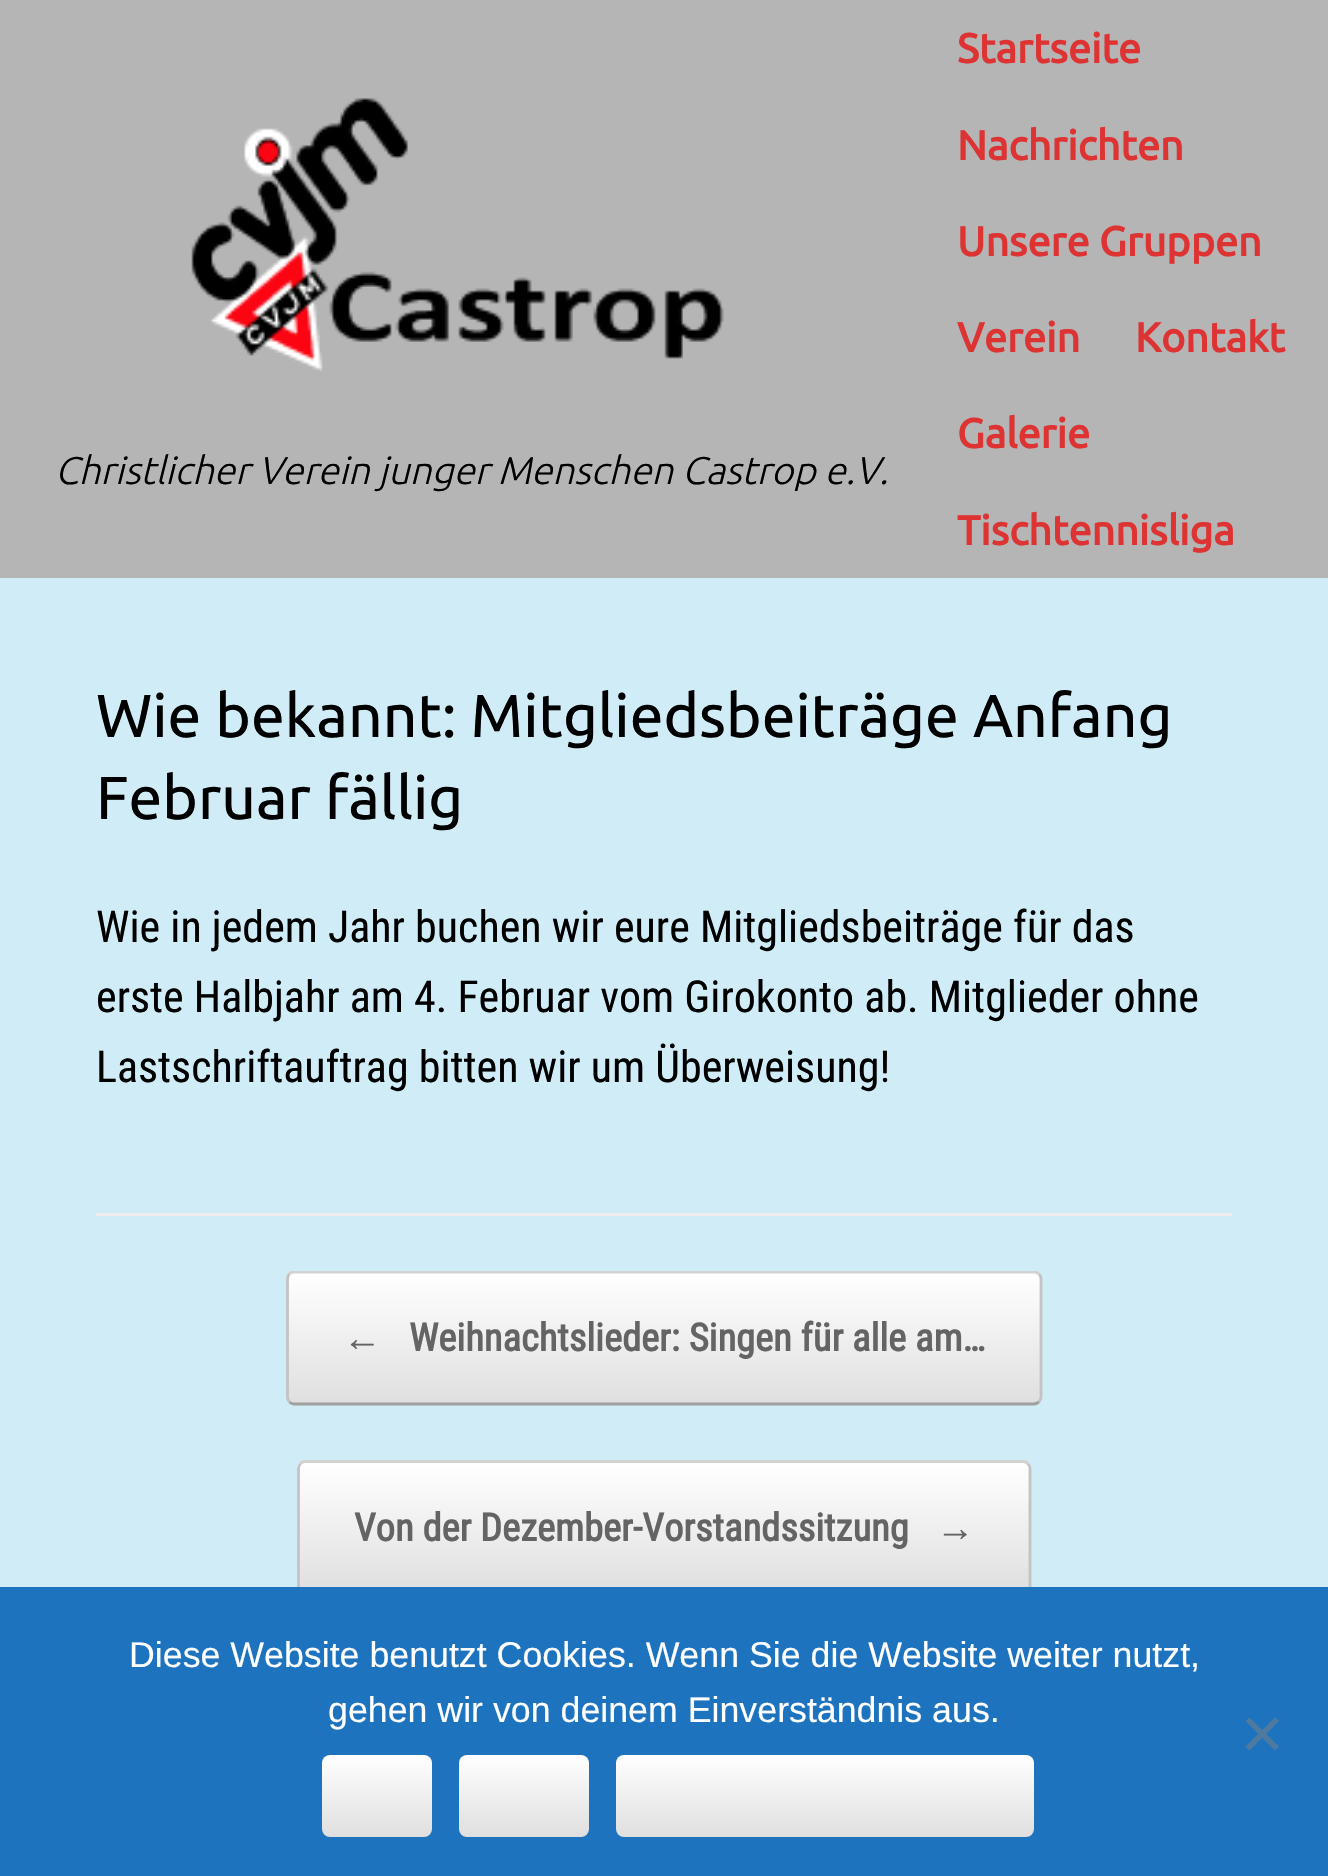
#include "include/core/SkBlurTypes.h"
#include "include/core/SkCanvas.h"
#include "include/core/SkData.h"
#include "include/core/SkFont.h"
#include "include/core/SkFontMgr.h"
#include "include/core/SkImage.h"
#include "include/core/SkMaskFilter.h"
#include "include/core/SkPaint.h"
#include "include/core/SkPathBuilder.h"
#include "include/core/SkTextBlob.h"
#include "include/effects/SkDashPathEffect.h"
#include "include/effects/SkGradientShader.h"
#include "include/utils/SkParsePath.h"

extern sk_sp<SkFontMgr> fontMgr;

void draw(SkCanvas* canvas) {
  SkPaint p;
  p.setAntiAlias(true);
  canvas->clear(SkColorSetRGB(207, 236, 247));
  p.setColor(SkColorSetRGB(181, 181, 181));
  canvas->drawRect(SkRect::MakeLTRB(0, 0, 1328, 578), p);
  canvas->drawImageRect(SkImages::DeferredFromEncodedData(SkData::MakeFromFileName("images/1.png")), SkRect::MakeLTRB(191, 98, 724, 372), SkSamplingOptions());
  p.setColor(SkColorSetRGB(238, 238, 238));
  canvas->drawRect(SkRect::MakeLTRB(96, 1213, 1232, 1216), p);
  canvas->save();
  canvas->clipPath(SkPathBuilder().moveTo(294, 1271).lineTo(1034, 1271).cubicTo(1038.5f, 1271, 1042, 1274.5f, 1042, 1279).lineTo(1042, 1397).cubicTo(1042, 1401.5f, 1038.5f, 1405, 1034, 1405).lineTo(294, 1405).cubicTo(289.5f, 1405, 286, 1401.5f, 286, 1397).lineTo(286, 1279).cubicTo(286, 1274.5f, 289.5f, 1271, 294, 1271).close().detach(), true);
  {
    const SkColor colors[] = {SkColorSetRGB(223, 223, 223), SK_ColorWHITE};
    const float stops[] = {0, 1};
    const SkPoint ends[] = {{289, 1403}, {289, 1273}};
    p.setShader(SkGradientShader::MakeLinear(ends, colors, stops, 2, SkTileMode::kClamp));
    p.setAlpha(255);
  }
  canvas->drawRect(SkRect::MakeLTRB(286, 1273, 1042, 1403), p);
  canvas->restore();
  canvas->save();
  canvas->clipRect(SkRect::MakeLTRB(96, 1271, 1232, 1650));
  p.setStyle(SkPaint::kStroke_Style);
  p.setStrokeWidth(2.8f);
  p.setShader(nullptr);
  p.setColor(SkColorSetRGB(210, 210, 210));
  canvas->drawPath(SkPathBuilder().moveTo(289.5f, 1274).cubicTo(290.5f, 1272.5f, 292.5f, 1272, 294, 1272).lineTo(1034, 1272).cubicTo(1036, 1272, 1037.5f, 1272.5f, 1039, 1274).detach(), p);
  canvas->restore();
  p.setColor(SkColorSetRGB(195, 195, 195));
  canvas->drawPath(SkPathBuilder().moveTo(1039, 1274).cubicTo(1040, 1275, 1041, 1277, 1041, 1279).lineTo(1041, 1397).cubicTo(1041, 1399, 1040, 1400.5f, 1039, 1402).detach(), p);
  p.setColor(SkColorSetRGB(159, 159, 159));
  canvas->drawPath(SkPathBuilder().moveTo(1039, 1402).cubicTo(1037.5f, 1403, 1036, 1404, 1034, 1404).lineTo(294, 1404).cubicTo(292.5f, 1404, 290.5f, 1403, 289.5f, 1402).detach(), p);
  p.setColor(SkColorSetRGB(195, 195, 195));
  canvas->drawPath(SkPathBuilder().moveTo(289.5f, 1402).cubicTo(288, 1400.5f, 287.5f, 1399, 287.5f, 1397).lineTo(287.5f, 1279).cubicTo(287.5f, 1277, 288, 1275, 289.5f, 1274).detach(), p);
  canvas->save();
  canvas->clipPath(SkPathBuilder().moveTo(305, 1460).lineTo(1023, 1460).cubicTo(1027.5f, 1460, 1031, 1463.5f, 1031, 1468).lineTo(1031, 1587).cubicTo(1031, 1591.5f, 1027.5f, 1595, 1023, 1595).lineTo(305, 1595).cubicTo(300.5f, 1595, 297, 1591.5f, 297, 1587).lineTo(297, 1468).cubicTo(297, 1463.5f, 300.5f, 1460, 305, 1460).close().detach(), true);
  p.setStyle(SkPaint::kFill_Style);
  {
    const SkColor colors[] = {SkColorSetRGB(223, 223, 223), SK_ColorWHITE};
    const float stops[] = {0, 1};
    const SkPoint ends[] = {{300, 1463}, {300, 1334}};
    p.setShader(SkGradientShader::MakeLinear(ends, colors, stops, 2, SkTileMode::kClamp));
    p.setAlpha(255);
  }
  canvas->drawRect(SkRect::MakeLTRB(297, 1460, 1031, 1463), p);
  {
    const SkColor colors[] = {SkColorSetRGB(223, 223, 223), SK_ColorWHITE};
    const float stops[] = {0, 1};
    const SkPoint ends[] = {{300, 1592}, {300, 1463}};
    p.setShader(SkGradientShader::MakeLinear(ends, colors, stops, 2, SkTileMode::kClamp));
    p.setAlpha(255);
  }
  canvas->drawRect(SkRect::MakeLTRB(297, 1463, 1031, 1587), p);
  canvas->restore();
  p.setStyle(SkPaint::kStroke_Style);
  p.setShader(nullptr);
  p.setColor(SkColorSetRGB(210, 210, 210));
  canvas->drawPath(SkPathBuilder().moveTo(300.5f, 1463.5f).cubicTo(301.5f, 1462.5f, 303.5f, 1461.5f, 305, 1461.5f).lineTo(1023, 1461.5f).cubicTo(1025, 1461.5f, 1026.5f, 1462.5f, 1028, 1463.5f).detach(), p);
  p.setColor(SkColorSetRGB(195, 195, 195));
  canvas->drawPath(SkPathBuilder().moveTo(1028, 1463.5f).cubicTo(1029, 1465, 1030, 1466.5f, 1030, 1468.5f).lineTo(1030, 1587).cubicTo(1030, 1588.5f, 1029, 1590.5f, 1028, 1591.5f).detach(), p);
  canvas->drawPath(SkPathBuilder().moveTo(300.5f, 1591.5f).cubicTo(299, 1590.5f, 298.5f, 1588.5f, 298.5f, 1587).lineTo(298.5f, 1468.5f).cubicTo(298.5f, 1466.5f, 299, 1465, 300.5f, 1463.5f).detach(), p);
  p.setStyle(SkPaint::kFill_Style);
  p.setColor(SkColorSetRGB(30, 115, 190));
  canvas->drawRect(SkRect::MakeLTRB(0, 1587, 1328, 1876), p);
  p.setColor(SkColorSetRGB(79, 122, 159));
  canvas->drawPath(SkPathBuilder().moveTo(1275, 1717.5f).lineTo(1279, 1721).lineTo(1249.5f, 1750.5f).lineTo(1245.5f, 1746.5f).close().detach(), p);
  canvas->drawPath(SkPathBuilder().moveTo(1245.5f, 1721).lineTo(1249.5f, 1717.5f).lineTo(1279, 1746.5f).lineTo(1275, 1750.5f).close().detach(), p);
  {
    const SkColor colors[] = {SkColorSetRGB(223, 223, 223), SK_ColorWHITE};
    const float stops[] = {0, 1};
    const SkPoint ends[] = {{322, 1837}, {322, 1755}};
    p.setShader(SkGradientShader::MakeLinear(ends, colors, stops, 2, SkTileMode::kClamp));
    p.setAlpha(255);
  }
  canvas->drawRoundRect(SkRect::MakeLTRB(322, 1755, 432, 1837), 8, 8, p);
  {
    const SkColor colors[] = {SkColorSetRGB(223, 223, 223), SK_ColorWHITE};
    const float stops[] = {0, 1};
    const SkPoint ends[] = {{459, 1837}, {459, 1755}};
    p.setShader(SkGradientShader::MakeLinear(ends, colors, stops, 2, SkTileMode::kClamp));
    p.setAlpha(255);
  }
  canvas->drawRoundRect(SkRect::MakeLTRB(459, 1755, 589, 1837), 8, 8, p);
  {
    const SkColor colors[] = {SkColorSetRGB(223, 223, 223), SK_ColorWHITE};
    const float stops[] = {0, 1};
    const SkPoint ends[] = {{616, 1837}, {616, 1755}};
    p.setShader(SkGradientShader::MakeLinear(ends, colors, stops, 2, SkTileMode::kClamp));
    p.setAlpha(255);
  }
  canvas->drawRoundRect(SkRect::MakeLTRB(616, 1755, 1034, 1837), 8, 8, p);
  SkFont font1(fontMgr->matchFamilyStyle("Ubuntu", SkFontStyle(300, SkFontStyle::kNormal_Width, SkFontStyle::kItalic_Slant)), 38.5f);
  font1.setSubpixel(true);
  p.setShader(nullptr);
  p.setColor(SK_ColorBLACK);
  canvas->drawString("Christlicher Verein junger Menschen Castrop e.V.", 55, 484, font1, p);
  SkFont font2(fontMgr->matchFamilyStyle("Ubuntu", SkFontStyle::Bold()), 41.25f);
  font2.setSubpixel(true);
  p.setColor(SkColorSetRGB(221, 51, 51));
  canvas->drawString("Startseite", 957, 63, font2, p);
  canvas->drawString("Nachrichten", 957, 160, font2, p);
  canvas->drawString("Unsere Gruppen", 957, 256, font2, p);
  canvas->drawString("Verein", 957, 352, font2, p);
  canvas->drawString("Kontakt", 1135, 352, font2, p);
  canvas->drawString("Galerie", 957, 448, font2, p);
  canvas->drawString("Tischtennisliga", 957, 545, font2, p);
  SkFont font3(fontMgr->matchFamilyStyle("Ubuntu", SkFontStyle::Normal()), 60.5f);
  font3.setSubpixel(true);
  p.setColor(SK_ColorBLACK);
  canvas->drawString("Wie bekannt: Mitgliedsbeiträge Anfang", 96, 737, font3, p);
  canvas->drawString("Februar fällig", 96, 819, font3, p);
  SkFont font4(fontMgr->matchFamilyStyle("Roboto Condensed", SkFontStyle::Normal()), 44);
  font4.setSubpixel(true);
  canvas->drawString("Wie in jedem Jahr buchen wir eure Mitgliedsbeiträge für das", 96, 942, font4, p);
  canvas->drawString("erste Halbjahr am 4. Februar vom Girokonto ab. Mitglieder ohne", 96, 1012, font4, p);
  canvas->drawString("Lastschriftauftrag bitten wir um Überweisung!", 96, 1082, font4, p);
  SkFont font5(fontMgr->matchFamilyStyle("Liberation Serif", SkFontStyle::Bold()), 38.5f);
  font5.setSubpixel(true);
  p.setColor(SkColorSetRGB(100, 100, 100));
  canvas->drawString("←", 343, 1351, font5, p);
  SkFont font6(fontMgr->matchFamilyStyle("Roboto Condensed", SkFontStyle::Bold()), 38.5f);
  font6.setSubpixel(true);
  canvas->drawString("Weihnachtslieder: Singen für alle am…", 409, 1351, font6, p);
  canvas->drawString("Von der Dezember-Vorstandssitzung", 354, 1541, font6, p);
  canvas->drawString("→", 936, 1541, font5, p);
  SkFont font7(fontMgr->matchFamilyStyle("Liberation Sans", SkFontStyle::Normal()), 35.75f);
  font7.setSubpixel(true);
  p.setColor(SK_ColorWHITE);
  canvas->drawString("Diese Website benutzt Cookies. Wenn Sie die Website weiter nutzt,", 129, 1667, font7, p);
  canvas->drawString("gehen wir von deinem Einverständnis aus.", 328, 1722, font7, p);
}
